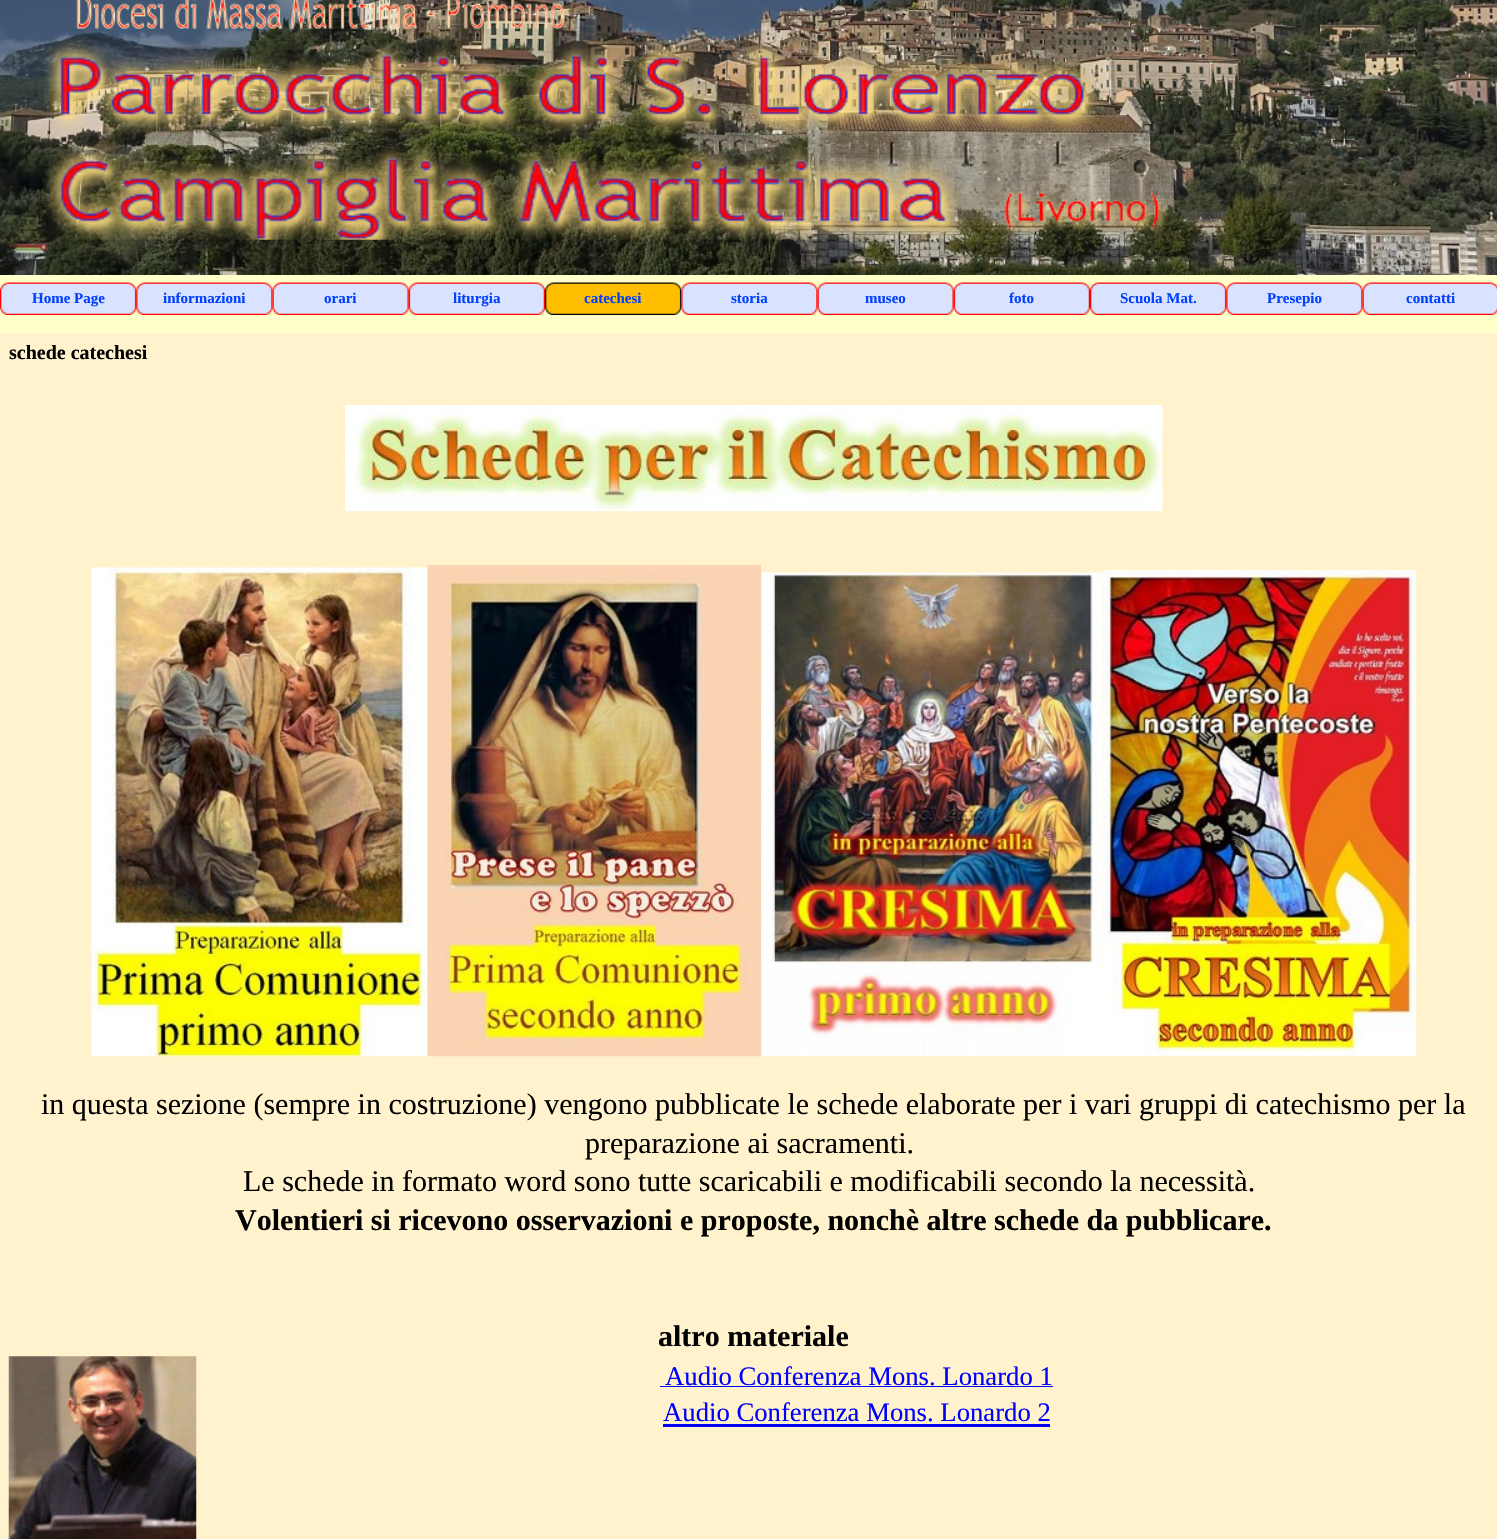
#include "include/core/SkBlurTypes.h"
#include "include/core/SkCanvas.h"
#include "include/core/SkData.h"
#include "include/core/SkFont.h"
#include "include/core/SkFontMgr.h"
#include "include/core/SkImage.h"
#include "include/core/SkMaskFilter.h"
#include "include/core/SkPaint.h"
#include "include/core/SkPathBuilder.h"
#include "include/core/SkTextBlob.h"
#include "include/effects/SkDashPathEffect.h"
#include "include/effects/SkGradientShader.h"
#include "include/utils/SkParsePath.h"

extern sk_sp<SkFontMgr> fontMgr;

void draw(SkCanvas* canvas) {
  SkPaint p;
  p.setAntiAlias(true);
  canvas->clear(SkColorSetRGB(255, 255, 202));
  canvas->drawImageRect(SkImages::DeferredFromEncodedData(SkData::MakeFromFileName("images/1.png")), SkRect::MakeLTRB(0, 0, 1497, 275), SkSamplingOptions());
  canvas->drawImageRect(SkImages::DeferredFromEncodedData(SkData::MakeFromFileName("images/2.png")), SkRect::MakeLTRB(76, 0, 565, 30), SkSamplingOptions());
  canvas->drawImageRect(SkImages::DeferredFromEncodedData(SkData::MakeFromFileName("images/3.png")), SkRect::MakeLTRB(43, 39, 1105, 138), SkSamplingOptions());
  canvas->drawImageRect(SkImages::DeferredFromEncodedData(SkData::MakeFromFileName("images/4.png")), SkRect::MakeLTRB(42, 141, 965, 240), SkSamplingOptions());
  canvas->drawImageRect(SkImages::DeferredFromEncodedData(SkData::MakeFromFileName("images/5.png")), SkRect::MakeLTRB(1002, 191, 1168, 238), SkSamplingOptions());
  canvas->drawImageRect(SkImages::DeferredFromEncodedData(SkData::MakeFromFileName("images/6.png")), SkRect::MakeLTRB(0, 282, 137, 315), SkSamplingOptions());
  canvas->drawImageRect(SkImages::DeferredFromEncodedData(SkData::MakeFromFileName("images/7.png")), SkRect::MakeLTRB(136, 282, 273, 315), SkSamplingOptions());
  canvas->drawImageRect(SkImages::DeferredFromEncodedData(SkData::MakeFromFileName("images/8.png")), SkRect::MakeLTRB(272, 282, 409, 315), SkSamplingOptions());
  canvas->drawImageRect(SkImages::DeferredFromEncodedData(SkData::MakeFromFileName("images/9.png")), SkRect::MakeLTRB(408, 282, 545, 315), SkSamplingOptions());
  canvas->drawImageRect(SkImages::DeferredFromEncodedData(SkData::MakeFromFileName("images/10.png")), SkRect::MakeLTRB(545, 282, 682, 315), SkSamplingOptions());
  canvas->drawImageRect(SkImages::DeferredFromEncodedData(SkData::MakeFromFileName("images/11.png")), SkRect::MakeLTRB(681, 282, 818, 315), SkSamplingOptions());
  canvas->drawImageRect(SkImages::DeferredFromEncodedData(SkData::MakeFromFileName("images/12.png")), SkRect::MakeLTRB(817, 282, 954, 315), SkSamplingOptions());
  canvas->drawImageRect(SkImages::DeferredFromEncodedData(SkData::MakeFromFileName("images/9.png")), SkRect::MakeLTRB(953, 282, 1090, 315), SkSamplingOptions());
  canvas->drawImageRect(SkImages::DeferredFromEncodedData(SkData::MakeFromFileName("images/6.png")), SkRect::MakeLTRB(1090, 282, 1227, 315), SkSamplingOptions());
  canvas->drawImageRect(SkImages::DeferredFromEncodedData(SkData::MakeFromFileName("images/7.png")), SkRect::MakeLTRB(1226, 282, 1363, 315), SkSamplingOptions());
  canvas->drawImageRect(SkImages::DeferredFromEncodedData(SkData::MakeFromFileName("images/13.png")), SkRect::MakeLTRB(1362, 282, 1497, 315), SkSamplingOptions());
  p.setColor(SkColorSetRGB(255, 242, 204));
  canvas->drawRect(SkRect::MakeLTRB(0, 333, 1497, 1539), p);
  canvas->drawImageRect(SkImages::DeferredFromEncodedData(SkData::MakeFromFileName("images/14.png")), SkRect::MakeLTRB(345, 405, 1163, 512), SkSamplingOptions());
  canvas->drawImageRect(SkImages::DeferredFromEncodedData(SkData::MakeFromFileName("images/15.png")), SkRect::MakeLTRB(91, 567, 428, 1057), SkSamplingOptions());
  canvas->drawImageRect(SkImages::DeferredFromEncodedData(SkData::MakeFromFileName("images/16.png")), SkRect::MakeLTRB(427, 565, 762, 1057), SkSamplingOptions());
  canvas->drawImageRect(SkImages::DeferredFromEncodedData(SkData::MakeFromFileName("images/17.png")), SkRect::MakeLTRB(761, 572, 1103, 1057), SkSamplingOptions());
  canvas->drawImageRect(SkImages::DeferredFromEncodedData(SkData::MakeFromFileName("images/18.png")), SkRect::MakeLTRB(1102, 570, 1417, 1057), SkSamplingOptions());
  canvas->drawImageRect(SkImages::DeferredFromEncodedData(SkData::MakeFromFileName("images/19.png")), SkRect::MakeLTRB(8, 1356, 197, 1539), SkSamplingOptions());
  p.setColor(SkColorSetRGB(0, 0, 255));
  canvas->drawRect(SkRect::MakeLTRB(660, 1386, 1053, 1387), p);
  canvas->drawRect(SkRect::MakeLTRB(663, 1424, 1050, 1427), p);
  SkFont font1(fontMgr->matchFamilyStyle("Liberation Serif", SkFontStyle::Bold()), 15);
  font1.setSubpixel(true);
  p.setColor(SkColorSetRGB(0, 64, 255));
  canvas->drawString("Home Page", 32, 303, font1, p);
  canvas->drawString("informazioni", 163, 303, font1, p);
  canvas->drawString("orari", 324, 303, font1, p);
  canvas->drawString("liturgia", 453, 303, font1, p);
  canvas->drawString("catechesi", 584, 303, font1, p);
  canvas->drawString("storia", 731, 303, font1, p);
  canvas->drawString("museo", 865, 303, font1, p);
  canvas->drawString("foto", 1009, 303, font1, p);
  canvas->drawString("Scuola Mat.", 1120, 303, font1, p);
  canvas->drawString("Presepio", 1267, 303, font1, p);
  canvas->drawString("contatti", 1406, 303, font1, p);
  SkFont font2(fontMgr->matchFamilyStyle("Liberation Serif", SkFontStyle::Bold()), 20);
  font2.setSubpixel(true);
  p.setColor(SK_ColorBLACK);
  canvas->drawString("schede catechesi", 9, 359, font2, p);
  SkFont font3(fontMgr->matchFamilyStyle("Liberation Serif", SkFontStyle::Normal()), 30);
  font3.setSubpixel(true);
  canvas->drawString("in questa sezione (sempre in costruzione) vengono pubblicate le schede elaborate per i vari gruppi di catechismo per la", 41, 1114, font3, p);
  canvas->drawString("preparazione ai sacramenti.", 585, 1153, font3, p);
  canvas->drawString("Le schede in formato word sono tutte scaricabili e modificabili secondo la necessità.", 243, 1191, font3, p);
  SkFont font4(fontMgr->matchFamilyStyle("Liberation Serif", SkFontStyle::Bold()), 30);
  font4.setSubpixel(true);
  canvas->drawString("Volentieri si ricevono osservazioni e proposte, nonchè altre schede da pubblicare.", 235, 1230, font4, p);
  canvas->drawString("altro materiale", 658, 1346, font4, p);
  SkFont font5(fontMgr->matchFamilyStyle("Liberation Serif", SkFontStyle::Normal()), 26.7f);
  font5.setSubpixel(true);
  p.setColor(SkColorSetRGB(0, 0, 255));
  canvas->drawString("Audio Conferenza Mons. Lonardo 1", 665, 1385, font5, p);
  canvas->drawString("Audio Conferenza Mons. Lonardo 2", 663, 1421, font5, p);
}
